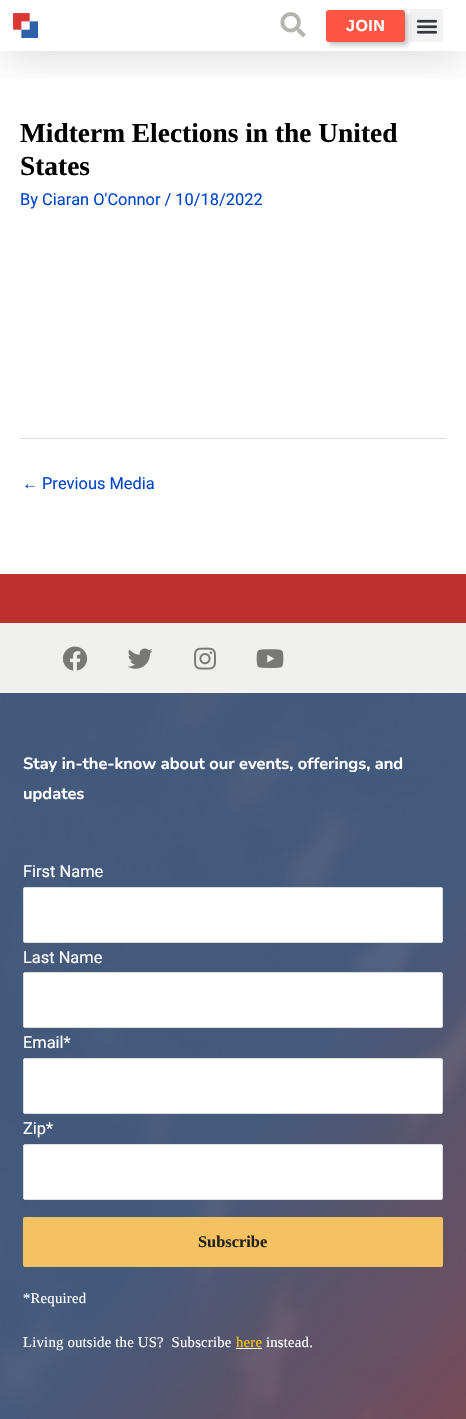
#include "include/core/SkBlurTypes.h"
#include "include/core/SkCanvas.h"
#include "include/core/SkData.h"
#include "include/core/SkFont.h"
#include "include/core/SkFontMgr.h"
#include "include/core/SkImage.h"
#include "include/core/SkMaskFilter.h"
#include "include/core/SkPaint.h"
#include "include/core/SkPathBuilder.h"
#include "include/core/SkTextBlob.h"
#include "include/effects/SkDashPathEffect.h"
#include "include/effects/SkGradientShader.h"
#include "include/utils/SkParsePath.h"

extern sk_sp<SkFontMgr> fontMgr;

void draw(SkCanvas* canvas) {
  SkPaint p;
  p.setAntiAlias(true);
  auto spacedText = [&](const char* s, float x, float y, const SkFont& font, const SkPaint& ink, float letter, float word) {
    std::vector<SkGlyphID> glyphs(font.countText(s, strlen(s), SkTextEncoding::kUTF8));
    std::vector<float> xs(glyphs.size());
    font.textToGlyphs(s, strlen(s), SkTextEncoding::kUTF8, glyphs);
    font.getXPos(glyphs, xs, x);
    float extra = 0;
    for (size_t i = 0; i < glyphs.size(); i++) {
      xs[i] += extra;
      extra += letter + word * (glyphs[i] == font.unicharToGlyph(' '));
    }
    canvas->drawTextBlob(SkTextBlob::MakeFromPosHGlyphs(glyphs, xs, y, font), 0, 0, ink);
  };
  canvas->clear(SK_ColorWHITE);
  canvas->save();
  canvas->clipRect(SkRect::MakeLTRB(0, 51, 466, 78));
  p.setColor(SkColorSetARGB(38, 0, 0, 0));
  p.setMaskFilter(SkMaskFilter::MakeBlur(kNormal_SkBlurStyle, 20));
  canvas->drawRect(SkRect::MakeLTRB(5, 15, 461, 56), p);
  p.setMaskFilter(nullptr);
  canvas->restore();
  canvas->drawImageRect(SkImages::DeferredFromEncodedData(SkData::MakeFromFileName("images/1.png")), SkRect::MakeLTRB(13, 13, 38, 38), SkSamplingOptions());
  canvas->drawImageRect(SkImages::DeferredFromEncodedData(SkData::MakeFromFileName("images/2.png")), SkRect::MakeLTRB(280, 12, 306, 37), SkSamplingOptions());
  p.setColor(SkColorSetARGB(64, 0, 0, 0));
  p.setMaskFilter(SkMaskFilter::MakeBlur(kNormal_SkBlurStyle, 2.5f));
  canvas->drawRoundRect(SkRect::MakeLTRB(329, 13, 408, 45), 3, 3, p);
  p.setMaskFilter(nullptr);
  p.setColor(SkColorSetRGB(255, 85, 68));
  canvas->drawRoundRect(SkRect::MakeLTRB(326, 10, 405, 42), 3, 3, p);
  p.setColor(SkColorSetARGB(13, 0, 0, 0));
  canvas->drawRect(SkRect::MakeLTRB(410, 9, 443, 42), p);
  canvas->drawImageRect(SkImages::DeferredFromEncodedData(SkData::MakeFromFileName("images/3.png")), SkRect::MakeLTRB(416, 19, 438, 34), SkSamplingOptions());
  p.setColor(SkColorSetRGB(221, 221, 221));
  canvas->drawRect(SkRect::MakeLTRB(20, 438, 446, 439), p);
  p.setColor(SkColorSetRGB(188, 47, 44));
  canvas->drawRect(SkRect::MakeLTRB(0, 574, 466, 623), p);
  p.setColor(SkColorSetRGB(240, 240, 236));
  canvas->drawRect(SkRect::MakeLTRB(0, 623, 466, 693), p);
  canvas->drawImageRect(SkImages::DeferredFromEncodedData(SkData::MakeFromFileName("images/4.png")), SkRect::MakeLTRB(62, 646, 88, 671), SkSamplingOptions());
  canvas->drawImageRect(SkImages::DeferredFromEncodedData(SkData::MakeFromFileName("images/5.png")), SkRect::MakeLTRB(127, 648, 153, 669), SkSamplingOptions());
  canvas->drawImageRect(SkImages::DeferredFromEncodedData(SkData::MakeFromFileName("images/6.png")), SkRect::MakeLTRB(194, 647, 216, 670), SkSamplingOptions());
  canvas->drawImageRect(SkImages::DeferredFromEncodedData(SkData::MakeFromFileName("images/7.png")), SkRect::MakeLTRB(256, 649, 284, 668), SkSamplingOptions());
  canvas->drawImageRect(SkImages::DeferredFromEncodedData(SkData::MakeFromFileName("images/8.png")), SkRect::MakeLTRB(0, 693, 466, 1419), SkSamplingOptions());
  p.setColor(SK_ColorWHITE);
  canvas->drawRoundRect(SkRect::MakeLTRB(23.5f, 887.5f, 442.5f, 942.5f), 1.5f, 1.5f, p);
  p.setStyle(SkPaint::kStroke_Style);
  p.setStrokeWidth(1);
  p.setColor(SkColorSetRGB(221, 221, 221));
  canvas->drawRoundRect(SkRect::MakeLTRB(23.5f, 887.5f, 442.5f, 942.5f), 1.5f, 1.5f, p);
  p.setStyle(SkPaint::kFill_Style);
  p.setColor(SK_ColorWHITE);
  canvas->drawRoundRect(SkRect::MakeLTRB(23.5f, 972.5f, 442.5f, 1027.5f), 1.5f, 1.5f, p);
  p.setStyle(SkPaint::kStroke_Style);
  p.setColor(SkColorSetRGB(221, 221, 221));
  canvas->drawRoundRect(SkRect::MakeLTRB(23.5f, 972.5f, 442.5f, 1027.5f), 1.5f, 1.5f, p);
  p.setStyle(SkPaint::kFill_Style);
  p.setColor(SK_ColorWHITE);
  canvas->drawRoundRect(SkRect::MakeLTRB(23.5f, 1058.5f, 442.5f, 1113.5f), 1.5f, 1.5f, p);
  p.setStyle(SkPaint::kStroke_Style);
  p.setColor(SkColorSetRGB(221, 221, 221));
  canvas->drawRoundRect(SkRect::MakeLTRB(23.5f, 1058.5f, 442.5f, 1113.5f), 1.5f, 1.5f, p);
  p.setStyle(SkPaint::kFill_Style);
  p.setColor(SK_ColorWHITE);
  canvas->drawRoundRect(SkRect::MakeLTRB(23.5f, 1144.5f, 442.5f, 1199.5f), 1.5f, 1.5f, p);
  p.setStyle(SkPaint::kStroke_Style);
  p.setColor(SkColorSetRGB(221, 221, 221));
  canvas->drawRoundRect(SkRect::MakeLTRB(23.5f, 1144.5f, 442.5f, 1199.5f), 1.5f, 1.5f, p);
  p.setStyle(SkPaint::kFill_Style);
  p.setColor(SkColorSetRGB(244, 194, 96));
  canvas->drawRoundRect(SkRect::MakeLTRB(23, 1217, 443, 1267), 2, 2, p);
  p.setColor(SK_ColorWHITE);
  canvas->drawRect(SkRect::MakeLTRB(236, 1348, 262, 1349), p);
  SkFont font1(fontMgr->matchFamilyStyle("Liberation Sans", SkFontStyle::Bold()), 16);
  font1.setSubpixel(true);
  spacedText("JOIN", 346, 31, font1, p, 0.5f, 0);
  SkFont font2(fontMgr->matchFamilyStyle("Liberation Serif", SkFontStyle::Bold()), 27.4f);
  font2.setSubpixel(true);
  p.setColor(SK_ColorBLACK);
  canvas->drawString("Midterm Elections in the United", 20, 142, font2, p);
  canvas->drawString("States", 20, 175, font2, p);
  SkFont font3(fontMgr->matchFamilyStyle("Roboto", SkFontStyle::Normal()), 16.4f);
  font3.setSubpixel(true);
  p.setColor(SkColorSetRGB(0, 68, 204));
  canvas->drawString("By Ciaran O'Connor / 10/18/2022", 20, 205, font3, p);
  SkFont font4(fontMgr->matchFamilyStyle("Liberation Sans", SkFontStyle::Normal()), 16.4f);
  font4.setSubpixel(true);
  canvas->drawString("←", 22, 489, font4, p);
  canvas->drawString("Previous Media", 42, 489, font3, p);
  SkFont font5(fontMgr->matchFamilyStyle("Nunito Sans", SkFontStyle::Bold()), 16.4f);
  font5.setSubpixel(true);
  p.setColor(SK_ColorWHITE);
  canvas->drawString("Stay in-the-know about our events, offerings, and", 23, 769, font5, p);
  canvas->drawString("updates", 23, 799, font5, p);
  canvas->drawString("First Name", 23, 877, font3, p);
  canvas->drawString("Last Name", 23, 963, font3, p);
  canvas->drawString("Email*", 23, 1048, font3, p);
  canvas->drawString("Zip*", 23, 1134, font3, p);
  SkFont font6(fontMgr->matchFamilyStyle("Liberation Serif", SkFontStyle::Bold()), 16.4f);
  font6.setSubpixel(true);
  p.setColor(SkColorSetRGB(35, 31, 32));
  canvas->drawString("Subscribe", 198, 1247, font6, p);
  SkFont font7(fontMgr->matchFamilyStyle("Liberation Serif", SkFontStyle::Normal()), 14.75f);
  font7.setSubpixel(true);
  p.setColor(SK_ColorWHITE);
  spacedText("*Required", 23, 1303, font7, p, 0.2f, 0);
  spacedText("Living outside the US?  Subscribe", 23, 1347, font7, p, 0.2f, 0);
  p.setColor(SkColorSetRGB(255, 204, 0));
  spacedText("here", 236, 1347, font7, p, 0.2f, 0);
  p.setColor(SK_ColorWHITE);
  spacedText("instead.", 266, 1347, font7, p, 0.2f, 0);
}
